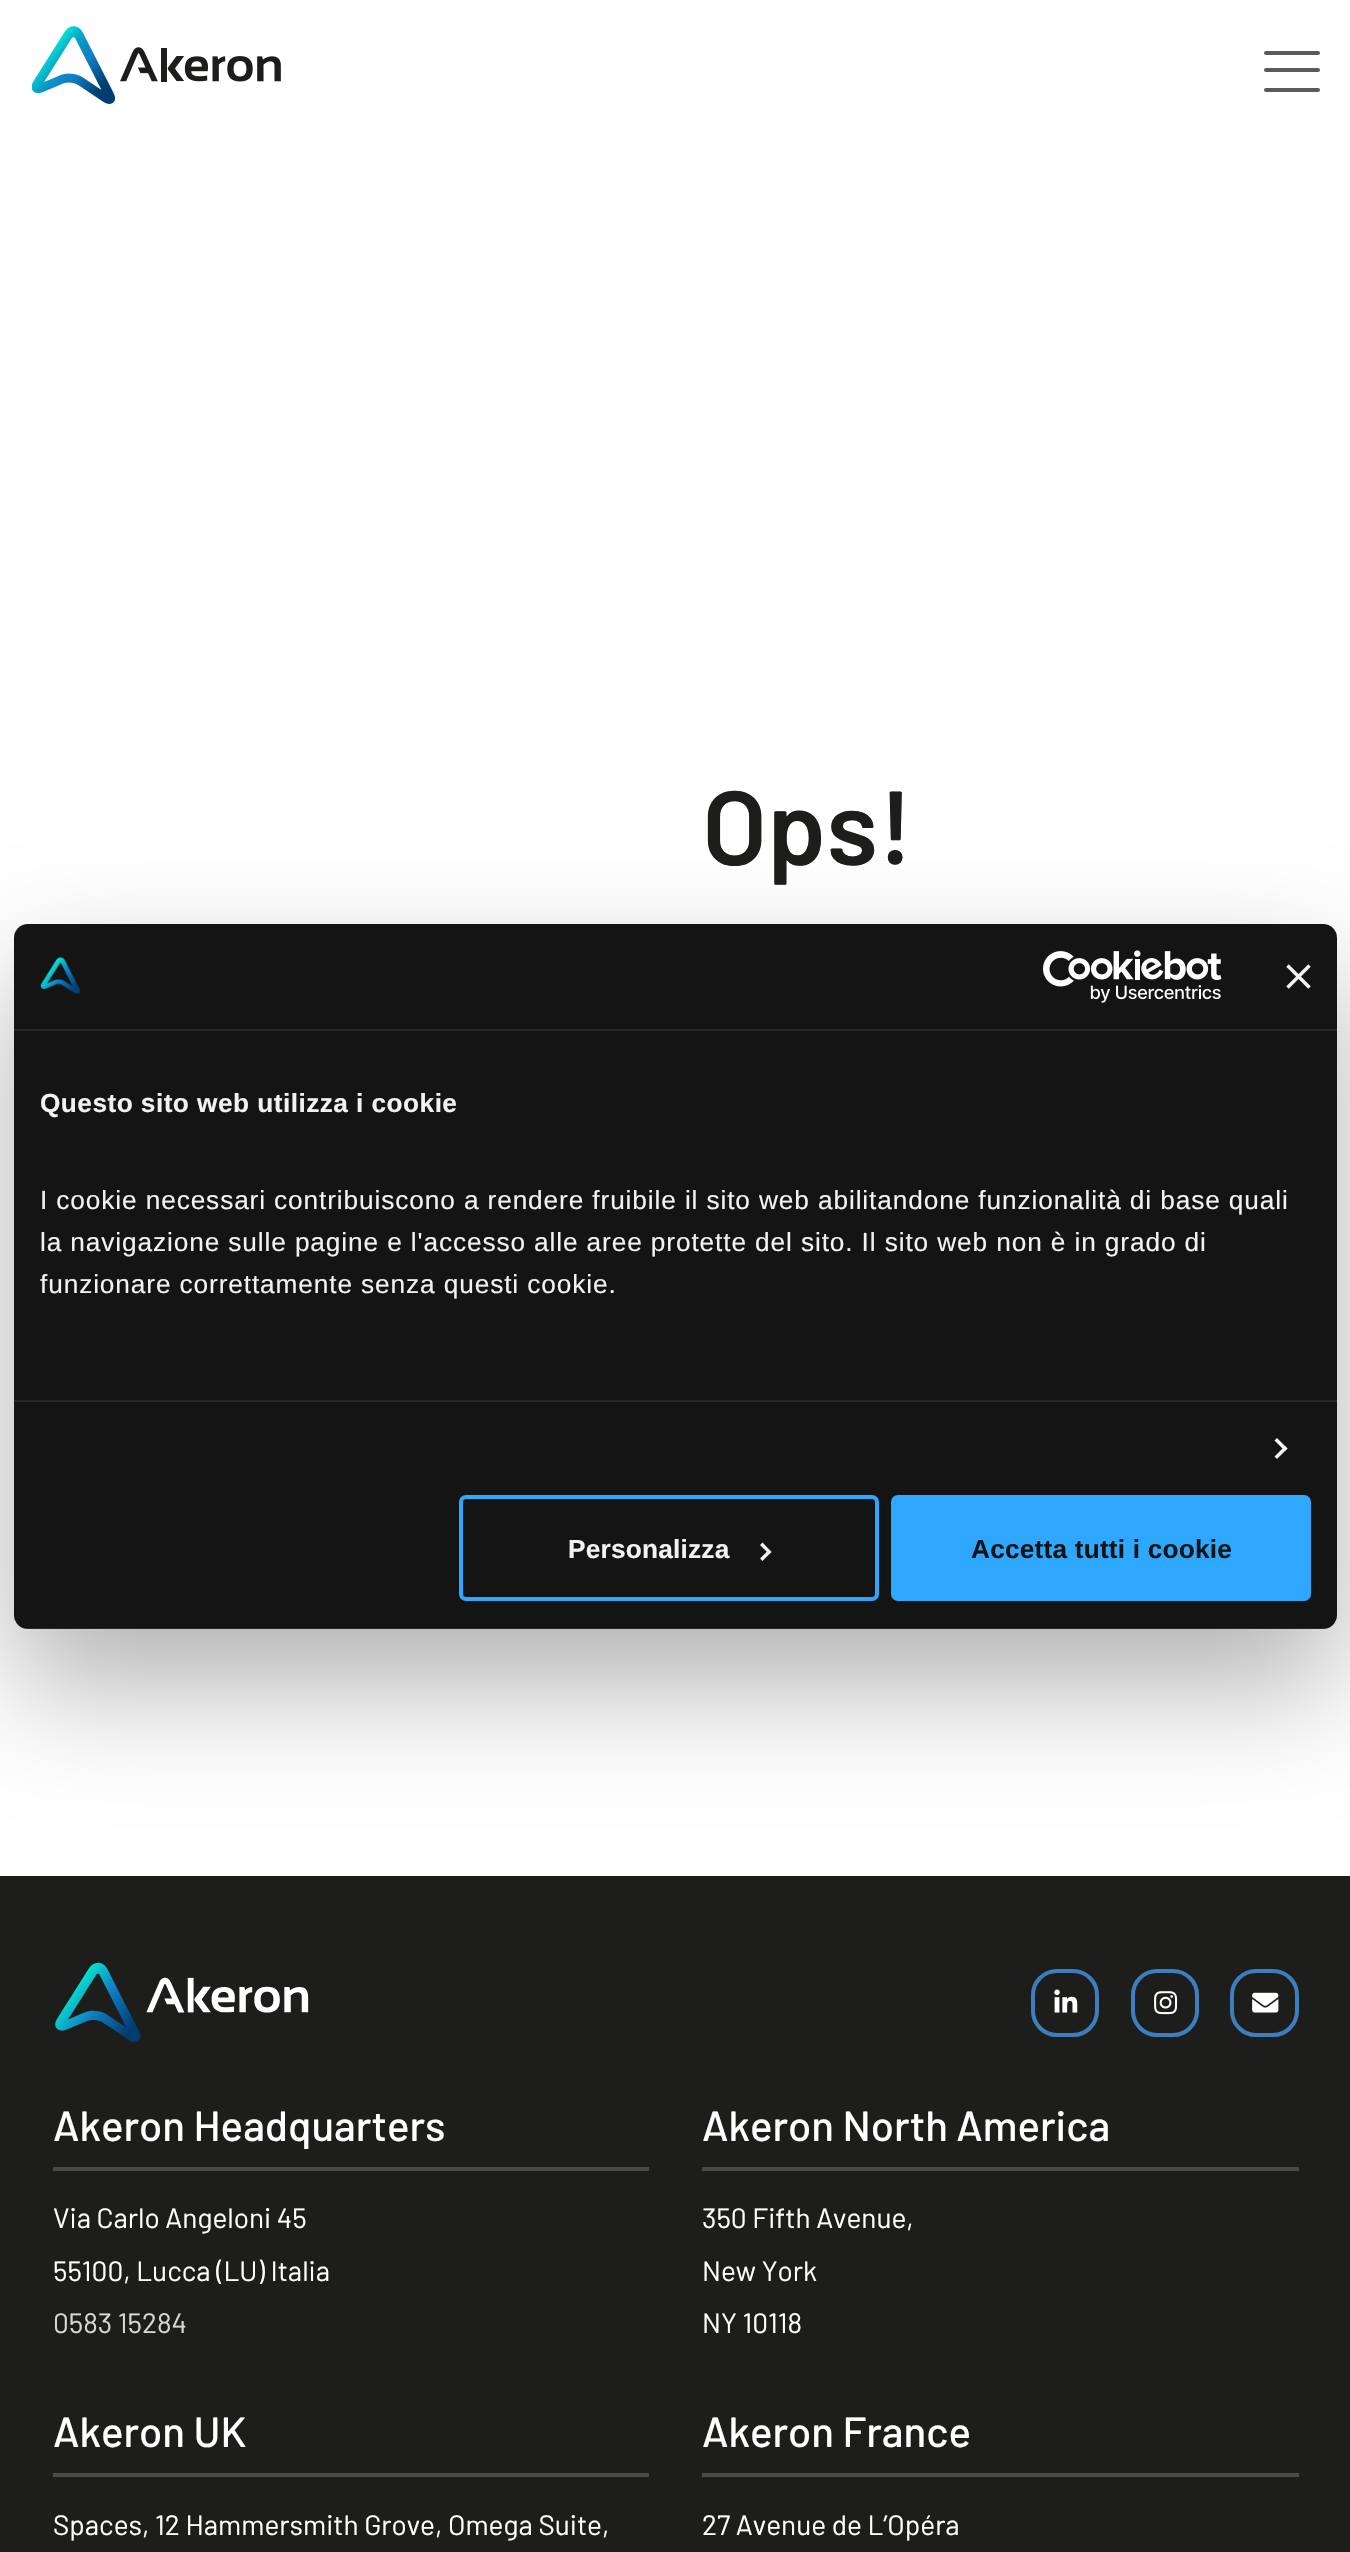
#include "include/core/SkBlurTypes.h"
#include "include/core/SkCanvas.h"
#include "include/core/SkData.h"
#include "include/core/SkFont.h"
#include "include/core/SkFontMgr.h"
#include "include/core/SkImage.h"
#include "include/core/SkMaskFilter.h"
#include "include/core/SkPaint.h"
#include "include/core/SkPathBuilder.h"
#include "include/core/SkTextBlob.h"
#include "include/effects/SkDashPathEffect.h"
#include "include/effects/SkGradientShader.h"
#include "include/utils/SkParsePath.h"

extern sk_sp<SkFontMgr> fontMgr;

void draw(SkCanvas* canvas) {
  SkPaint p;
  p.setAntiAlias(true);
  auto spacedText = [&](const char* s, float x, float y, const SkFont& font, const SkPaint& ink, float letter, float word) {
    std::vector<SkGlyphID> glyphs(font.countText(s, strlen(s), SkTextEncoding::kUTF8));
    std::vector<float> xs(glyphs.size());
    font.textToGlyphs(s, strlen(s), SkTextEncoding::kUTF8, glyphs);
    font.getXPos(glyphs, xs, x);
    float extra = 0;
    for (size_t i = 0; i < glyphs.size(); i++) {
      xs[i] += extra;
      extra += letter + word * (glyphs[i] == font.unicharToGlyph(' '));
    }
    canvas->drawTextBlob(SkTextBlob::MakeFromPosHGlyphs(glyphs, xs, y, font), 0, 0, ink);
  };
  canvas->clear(SK_ColorWHITE);
  canvas->drawImageRect(SkImages::DeferredFromEncodedData(SkData::MakeFromFileName("images/1.png")), SkRect::MakeLTRB(32, 26, 281, 104), SkSamplingOptions());
  p.setColor(SkColorSetRGB(90, 90, 90));
  canvas->drawRoundRect(SkRect::MakeLTRB(1264, 51, 1320, 55), 2, 2, p);
  canvas->drawRoundRect(SkRect::MakeLTRB(1264, 68, 1320, 72), 2, 2, p);
  canvas->drawRoundRect(SkRect::MakeLTRB(1264, 88, 1320, 92), 2, 2, p);
  p.setColor(SkColorSetARGB(77, 0, 0, 0));
  p.setMaskFilter(SkMaskFilter::MakeBlur(kNormal_SkBlurStyle, 59.5f));
  canvas->drawRoundRect(SkRect::MakeLTRB(14, 980, 1337, 1685), 14, 14, p);
  p.setMaskFilter(nullptr);
  p.setColor(SkColorSetRGB(20, 20, 20));
  canvas->drawRoundRect(SkRect::MakeLTRB(14, 924, 1337, 1629), 14, 14, p);
  p.setColor(SkColorSetRGB(39, 39, 39));
  canvas->drawRect(SkRect::MakeLTRB(14, 1029, 1337, 1031), p);
  canvas->drawImageRect(SkImages::DeferredFromEncodedData(SkData::MakeFromFileName("images/2.png")), SkRect::MakeLTRB(40, 957, 81, 994), SkSamplingOptions());
  canvas->drawImageRect(SkImages::DeferredFromEncodedData(SkData::MakeFromFileName("images/3.png")), SkRect::MakeLTRB(1043, 950, 1222, 1003), SkSamplingOptions());
  canvas->drawImageRect(SkImages::DeferredFromEncodedData(SkData::MakeFromFileName("images/4.png")), SkRect::MakeLTRB(1286, 964, 1311, 989), SkSamplingOptions());
  canvas->drawRect(SkRect::MakeLTRB(14, 1400, 1337, 1402), p);
  p.setColor(SkColorSetRGB(242, 242, 242));
  canvas->drawPath(SkPathBuilder().moveTo(1277, 1438).lineTo(1287.5f, 1448.5f).lineTo(1285, 1451).lineTo(1274.5f, 1440.5f).close().detach(), p);
  canvas->drawPath(SkPathBuilder().moveTo(1285, 1446).lineTo(1287.5f, 1448.5f).lineTo(1277, 1459).lineTo(1274.5f, 1456.5f).close().detach(), p);
  canvas->save();
  canvas->clipPath(SkPathBuilder().moveTo(28, 924).lineTo(1323, 924).cubicTo(1330.5f, 924, 1337, 930.5f, 1337, 938).lineTo(1337, 1615).cubicTo(1337, 1622.5f, 1330.5f, 1629, 1323, 1629).lineTo(28, 1629).cubicTo(20.5f, 1629, 14, 1622.5f, 14, 1615).lineTo(14, 938).cubicTo(14, 930.5f, 20.5f, 924, 28, 924).close().detach(), true);
  p.setColor(SkColorSetARGB(20, 255, 255, 255));
  canvas->drawRect(SkRect::MakeLTRB(24, 1628, 1327, 1629), p);
  canvas->restore();
  p.setStyle(SkPaint::kStroke_Style);
  p.setStrokeWidth(4);
  p.setColor(SkColorSetRGB(46, 167, 255));
  canvas->drawRoundRect(SkRect::MakeLTRB(461, 1497, 877, 1599), 5, 5, p);
  p.setStyle(SkPaint::kFill_Style);
  p.setColor(SkColorSetRGB(242, 242, 242));
  canvas->drawPath(SkPathBuilder().moveTo(762.5f, 1542.5f).lineTo(771.5f, 1552).lineTo(769, 1554).lineTo(760, 1545).close().detach(), p);
  canvas->drawPath(SkPathBuilder().moveTo(769, 1549.5f).lineTo(771.5f, 1552).lineTo(762.5f, 1561).lineTo(760, 1558.5f).close().detach(), p);
  p.setColor(SkColorSetRGB(46, 167, 255));
  canvas->drawRoundRect(SkRect::MakeLTRB(893, 1497, 1309, 1599), 5, 5, p);
  p.setStyle(SkPaint::kStroke_Style);
  canvas->drawRoundRect(SkRect::MakeLTRB(893, 1497, 1309, 1599), 5, 5, p);
  p.setStyle(SkPaint::kFill_Style);
  p.setColor(SkColorSetRGB(29, 30, 27));
  canvas->drawRect(SkRect::MakeLTRB(0, 1876, 1350, 2552), p);
  canvas->drawImageRect(SkImages::DeferredFromEncodedData(SkData::MakeFromFileName("images/5.png")), SkRect::MakeLTRB(55, 1962, 309, 2042), SkSamplingOptions());
  p.setStyle(SkPaint::kStroke_Style);
  p.setColor(SkColorSetRGB(59, 127, 192));
  canvas->drawRoundRect(SkRect::MakeLTRB(1033, 1971, 1097, 2035), 24, 24, p);
  canvas->drawImageRect(SkImages::DeferredFromEncodedData(SkData::MakeFromFileName("images/6.png")), SkRect::MakeLTRB(1054, 1989, 1078, 2013), SkSamplingOptions());
  canvas->drawRoundRect(SkRect::MakeLTRB(1133, 1971, 1197, 2035), 24, 24, p);
  canvas->drawImageRect(SkImages::DeferredFromEncodedData(SkData::MakeFromFileName("images/7.png")), SkRect::MakeLTRB(1154, 1991, 1178, 2015), SkSamplingOptions());
  canvas->drawRoundRect(SkRect::MakeLTRB(1232, 1971, 1297, 2035), 24, 24, p);
  canvas->drawImageRect(SkImages::DeferredFromEncodedData(SkData::MakeFromFileName("images/8.png")), SkRect::MakeLTRB(1252, 1992, 1279, 2013), SkSamplingOptions());
  p.setStyle(SkPaint::kFill_Style);
  p.setColor(SkColorSetRGB(74, 75, 73));
  canvas->drawRect(SkRect::MakeLTRB(53, 2167, 649, 2171), p);
  canvas->drawRect(SkRect::MakeLTRB(702, 2167, 1299, 2171), p);
  canvas->drawRect(SkRect::MakeLTRB(53, 2473, 649, 2477), p);
  canvas->drawRect(SkRect::MakeLTRB(702, 2473, 1299, 2477), p);
  SkFont font1(fontMgr->matchFamilyStyle("Barlow", SkFontStyle(600, SkFontStyle::kNormal_Width, SkFontStyle::kUpright_Slant)), 105);
  font1.setSubpixel(true);
  p.setColor(SkColorSetRGB(29, 30, 27));
  canvas->drawString("Ops!", 702, 865, font1, p);
  SkFont font2(fontMgr->matchFamilyStyle("Liberation Sans", SkFontStyle::Bold()), 26.25f);
  font2.setSubpixel(true);
  p.setColor(SkColorSetRGB(242, 242, 242));
  spacedText("Questo sito web utilizza i cookie", 40, 1112, font2, p, 0.45f, 0);
  SkFont font3(fontMgr->matchFamilyStyle("Liberation Sans", SkFontStyle::Normal()), 26.25f);
  font3.setSubpixel(true);
  spacedText("I cookie necessari contribuiscono a rendere fruibile il sito web abilitandone funzionalità di base quali", 40, 1209, font3, p, 0.88f, 0);
  spacedText("la navigazione sulle pagine e l'accesso alle aree protette del sito. Il sito web non è in grado di", 40, 1251, font3, p, 0.88f, 0);
  spacedText("funzionare correttamente senza questi cookie.", 40, 1293, font3, p, 0.88f, 0);
  spacedText("Personalizza", 568, 1558, font2, p, 0.2f, 0);
  p.setColor(SkColorSetRGB(20, 20, 20));
  spacedText("Accetta tutti i cookie", 971, 1558, font2, p, 0.2f, 0);
  SkFont font4(fontMgr->matchFamilyStyle("Barlow", SkFontStyle(500, SkFontStyle::kNormal_Width, SkFontStyle::kUpright_Slant)), 42);
  font4.setSubpixel(true);
  p.setColor(SK_ColorWHITE);
  canvas->drawString("Akeron Headquarters", 53, 2141, font4, p);
  SkFont font5(fontMgr->matchFamilyStyle("Barlow", SkFontStyle::Normal()), 28);
  font5.setSubpixel(true);
  canvas->drawString("Via Carlo Angeloni 45", 53, 2228, font5, p);
  canvas->drawString("55100, Lucca (LU) Italia", 53, 2281, font5, p);
  p.setColor(SkColorSetRGB(215, 215, 215));
  canvas->drawString("0583 15284", 53, 2333, font5, p);
  p.setColor(SK_ColorWHITE);
  canvas->drawString("Akeron North America", 702, 2141, font4, p);
  canvas->drawString("350 Fifth Avenue,", 702, 2228, font5, p);
  canvas->drawString("New York", 702, 2281, font5, p);
  canvas->drawString("NY 10118", 702, 2333, font5, p);
  canvas->drawString("Akeron UK", 53, 2447, font4, p);
  canvas->drawString("Spaces, 12 Hammersmith Grove, Omega Suite,", 53, 2535, font5, p);
  canvas->drawString("Akeron France", 702, 2447, font4, p);
  canvas->drawString("27 Avenue de L’Opéra", 702, 2535, font5, p);
}
